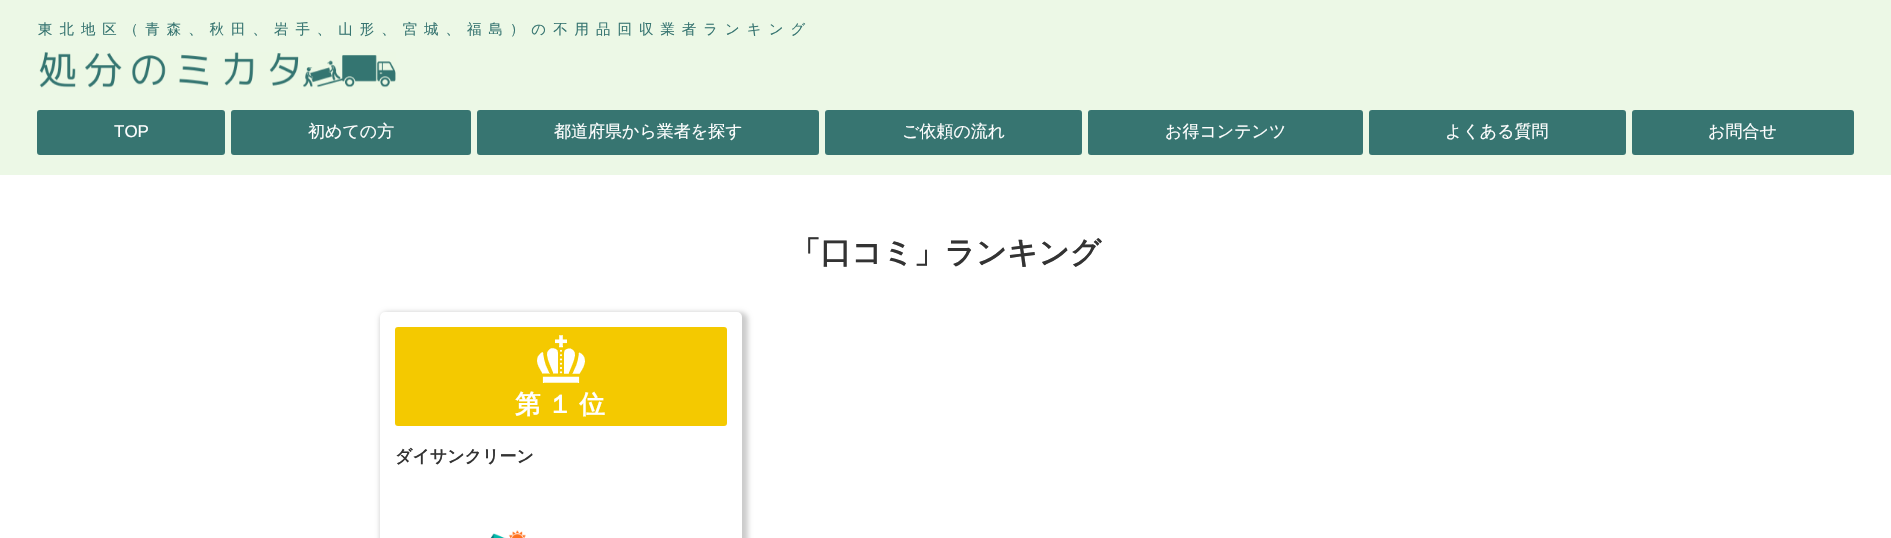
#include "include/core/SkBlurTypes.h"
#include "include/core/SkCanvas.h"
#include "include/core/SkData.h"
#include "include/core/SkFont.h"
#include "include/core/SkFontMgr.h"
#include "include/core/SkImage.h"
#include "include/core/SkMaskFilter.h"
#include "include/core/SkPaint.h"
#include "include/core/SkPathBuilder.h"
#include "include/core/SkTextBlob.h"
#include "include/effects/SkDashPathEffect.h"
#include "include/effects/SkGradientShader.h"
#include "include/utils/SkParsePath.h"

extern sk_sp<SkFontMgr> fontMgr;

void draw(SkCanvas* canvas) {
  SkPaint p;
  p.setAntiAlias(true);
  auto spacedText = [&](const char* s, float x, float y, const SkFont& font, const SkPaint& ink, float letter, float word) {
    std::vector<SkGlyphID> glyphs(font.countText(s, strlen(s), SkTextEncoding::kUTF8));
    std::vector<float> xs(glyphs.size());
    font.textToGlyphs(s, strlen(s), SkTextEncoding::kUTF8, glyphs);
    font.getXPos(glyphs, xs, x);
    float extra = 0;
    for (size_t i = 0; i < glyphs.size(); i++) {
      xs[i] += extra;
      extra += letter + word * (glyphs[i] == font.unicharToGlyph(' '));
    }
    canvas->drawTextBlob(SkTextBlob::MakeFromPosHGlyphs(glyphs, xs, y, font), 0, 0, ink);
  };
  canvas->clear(SK_ColorWHITE);
  p.setColor(SkColorSetRGB(236, 248, 230));
  canvas->drawRect(SkRect::MakeLTRB(0, 0, 1891, 175), p);
  canvas->drawImageRect(SkImages::DeferredFromEncodedData(SkData::MakeFromFileName("images/1.png")), SkRect::MakeLTRB(39, 52, 396, 88), SkSamplingOptions());
  p.setColor(SkColorSetRGB(55, 117, 113));
  canvas->drawRoundRect(SkRect::MakeLTRB(38.5f, 111.5f, 223.5f, 153.5f), 1.5f, 1.5f, p);
  p.setStyle(SkPaint::kStroke_Style);
  p.setStrokeWidth(3);
  canvas->drawRoundRect(SkRect::MakeLTRB(38.5f, 111.5f, 223.5f, 153.5f), 1.5f, 1.5f, p);
  p.setStyle(SkPaint::kFill_Style);
  canvas->drawRoundRect(SkRect::MakeLTRB(232.5f, 111.5f, 469.5f, 153.5f), 1.5f, 1.5f, p);
  p.setStyle(SkPaint::kStroke_Style);
  canvas->drawRoundRect(SkRect::MakeLTRB(232.5f, 111.5f, 469.5f, 153.5f), 1.5f, 1.5f, p);
  p.setStyle(SkPaint::kFill_Style);
  canvas->drawRoundRect(SkRect::MakeLTRB(478.5f, 111.5f, 817.5f, 153.5f), 1.5f, 1.5f, p);
  p.setStyle(SkPaint::kStroke_Style);
  canvas->drawRoundRect(SkRect::MakeLTRB(478.5f, 111.5f, 817.5f, 153.5f), 1.5f, 1.5f, p);
  p.setStyle(SkPaint::kFill_Style);
  canvas->drawRoundRect(SkRect::MakeLTRB(826.5f, 111.5f, 1080.5f, 153.5f), 1.5f, 1.5f, p);
  p.setStyle(SkPaint::kStroke_Style);
  canvas->drawRoundRect(SkRect::MakeLTRB(826.5f, 111.5f, 1080.5f, 153.5f), 1.5f, 1.5f, p);
  p.setStyle(SkPaint::kFill_Style);
  canvas->drawRoundRect(SkRect::MakeLTRB(1089.5f, 111.5f, 1361.5f, 153.5f), 1.5f, 1.5f, p);
  p.setStyle(SkPaint::kStroke_Style);
  canvas->drawRoundRect(SkRect::MakeLTRB(1089.5f, 111.5f, 1361.5f, 153.5f), 1.5f, 1.5f, p);
  p.setStyle(SkPaint::kFill_Style);
  canvas->drawRoundRect(SkRect::MakeLTRB(1370.5f, 111.5f, 1624.5f, 153.5f), 1.5f, 1.5f, p);
  p.setStyle(SkPaint::kStroke_Style);
  canvas->drawRoundRect(SkRect::MakeLTRB(1370.5f, 111.5f, 1624.5f, 153.5f), 1.5f, 1.5f, p);
  p.setStyle(SkPaint::kFill_Style);
  canvas->drawRoundRect(SkRect::MakeLTRB(1633.5f, 111.5f, 1852.5f, 153.5f), 1.5f, 1.5f, p);
  p.setStyle(SkPaint::kStroke_Style);
  canvas->drawRoundRect(SkRect::MakeLTRB(1633.5f, 111.5f, 1852.5f, 153.5f), 1.5f, 1.5f, p);
  p.setStyle(SkPaint::kFill_Style);
  p.setColor(SkColorSetRGB(204, 204, 204));
  p.setMaskFilter(SkMaskFilter::MakeBlur(kNormal_SkBlurStyle, 2.5f));
  canvas->drawRoundRect(SkRect::MakeLTRB(380, 312, 748, 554), 8, 8, p);
  p.setMaskFilter(nullptr);
  p.setColor(SK_ColorWHITE);
  canvas->drawRoundRect(SkRect::MakeLTRB(382.5f, 314.5f, 739.5f, 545.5f), 2.5f, 2.5f, p);
  p.setStyle(SkPaint::kStroke_Style);
  p.setStrokeWidth(5);
  canvas->drawRoundRect(SkRect::MakeLTRB(382.5f, 314.5f, 739.5f, 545.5f), 2.5f, 2.5f, p);
  p.setStyle(SkPaint::kFill_Style);
  p.setColor(SkColorSetRGB(244, 201, 0));
  canvas->drawRoundRect(SkRect::MakeLTRB(395, 327, 727, 426), 3, 3, p);
  canvas->drawImageRect(SkImages::DeferredFromEncodedData(SkData::MakeFromFileName("images/2.png")), SkRect::MakeLTRB(537, 335, 585, 383), SkSamplingOptions());
  canvas->drawImageRect(SkImages::DeferredFromEncodedData(SkData::MakeFromFileName("images/3.png")), SkRect::MakeLTRB(490, 530, 526, 538), SkSamplingOptions());
  SkFont font1(fontMgr->matchFamilyStyle("WenQuanYi Zen Hei", SkFontStyle(500, SkFontStyle::kNormal_Width, SkFontStyle::kUpright_Slant)), 14.45f);
  font1.setSubpixel(true);
  p.setColor(SkColorSetRGB(55, 117, 113));
  spacedText("東北地区（青森、秋田、岩手、山形、宮城、福島）の不用品回収業者ランキング", 38, 34, font1, p, 7, 0);
  SkFont font2(fontMgr->matchFamilyStyle("Liberation Sans", SkFontStyle::Normal()), 17);
  font2.setSubpixel(true);
  p.setColor(SK_ColorWHITE);
  canvas->drawString("TOP", 114, 137, font2, p);
  SkFont font3(fontMgr->matchFamilyStyle("WenQuanYi Zen Hei", SkFontStyle(500, SkFontStyle::kNormal_Width, SkFontStyle::kUpright_Slant)), 17);
  font3.setSubpixel(true);
  canvas->drawString("初めての方", 308, 137, font3, p);
  canvas->drawString("都道府県から業者を探す", 554, 137, font3, p);
  canvas->drawString("ご依頼の流れ", 902, 137, font3, p);
  canvas->drawString("お得コンテンツ", 1165, 137, font3, p);
  canvas->drawString("よくある質問", 1445, 137, font3, p);
  canvas->drawString("お問合せ", 1708, 137, font3, p);
  SkFont font4(fontMgr->matchFamilyStyle("WenQuanYi Zen Hei", SkFontStyle::Bold()), 30.6f);
  font4.setSubpixel(true);
  p.setColor(SkColorSetRGB(51, 51, 51));
  canvas->drawString("「口コミ」ランキング", 790, 263, font4, p);
  SkFont font5(fontMgr->matchFamilyStyle("WenQuanYi Zen Hei", SkFontStyle::Bold()), 25.5f);
  font5.setSubpixel(true);
  p.setColor(SK_ColorWHITE);
  spacedText("第 １ 位", 515, 413, font5, p, 0, -1);
  SkFont font6(fontMgr->matchFamilyStyle("WenQuanYi Zen Hei", SkFontStyle::Bold()), 17);
  font6.setSubpixel(true);
  p.setColor(SkColorSetRGB(51, 51, 51));
  canvas->drawString("ダイサンクリーン", 395, 462, font6, p);
}
